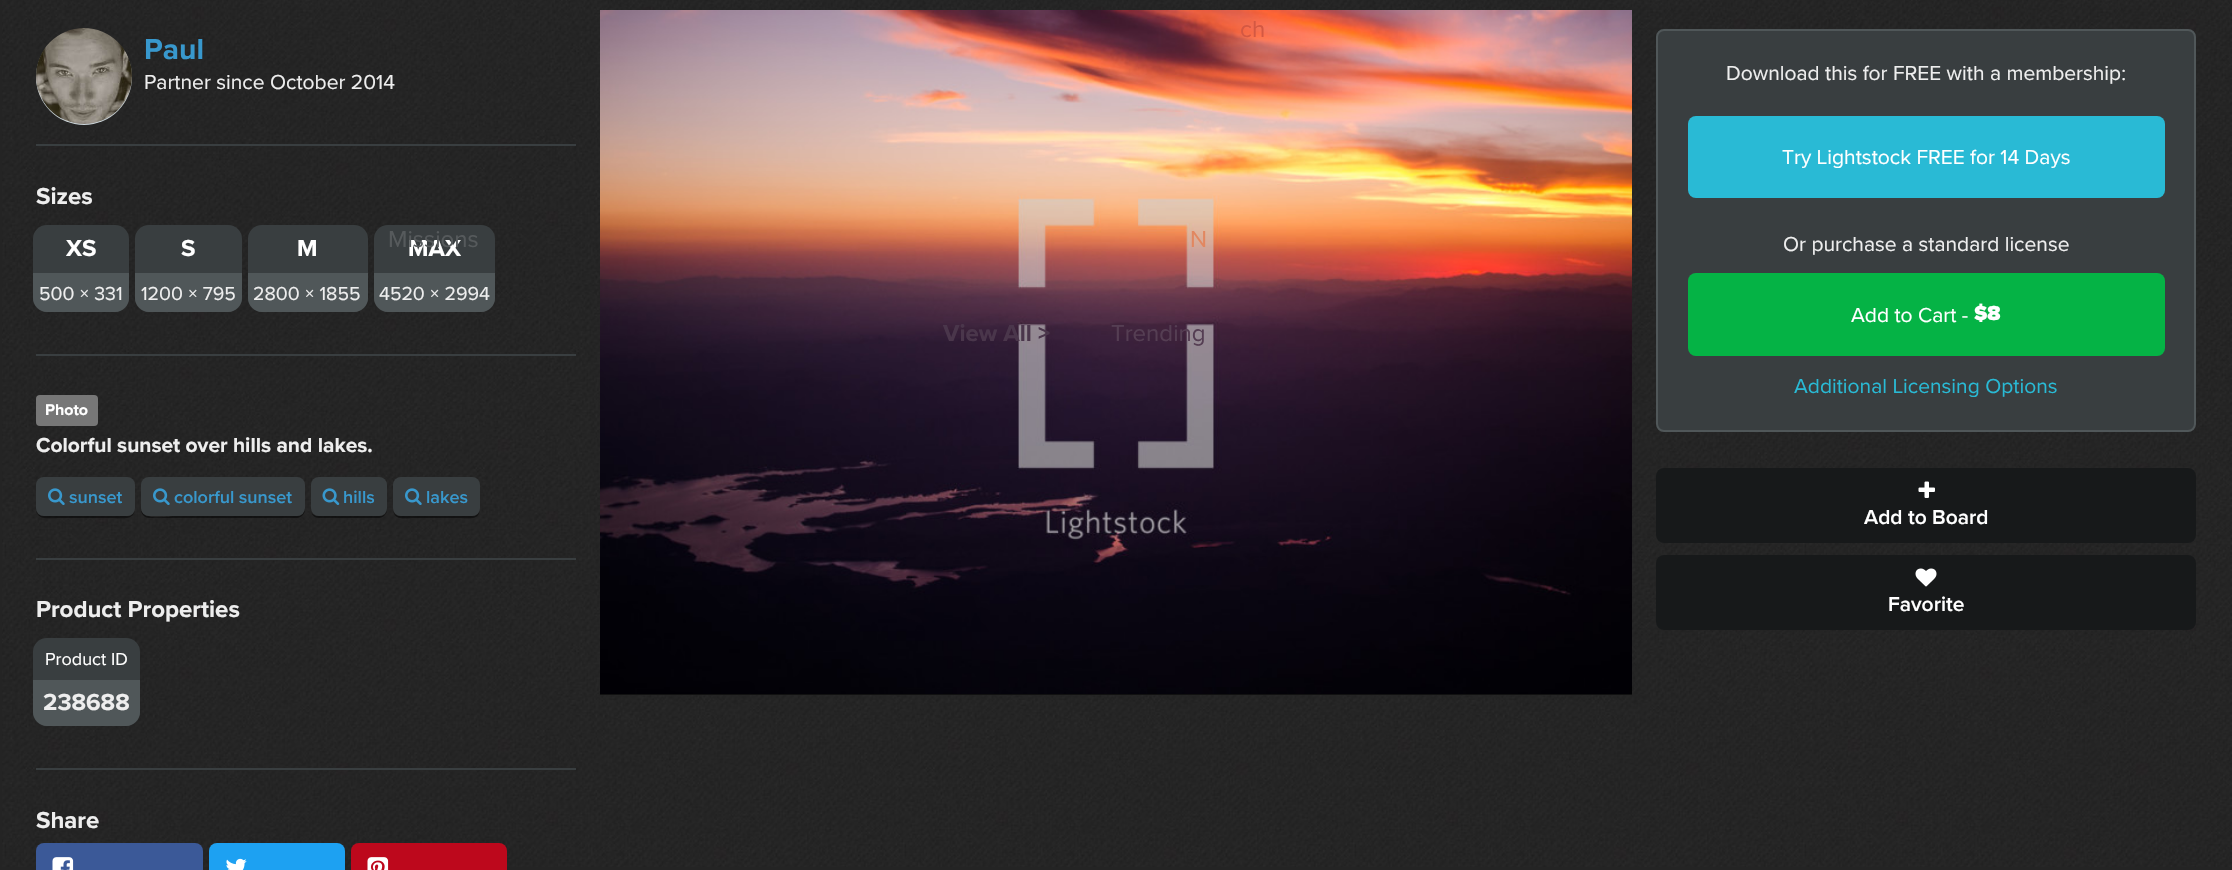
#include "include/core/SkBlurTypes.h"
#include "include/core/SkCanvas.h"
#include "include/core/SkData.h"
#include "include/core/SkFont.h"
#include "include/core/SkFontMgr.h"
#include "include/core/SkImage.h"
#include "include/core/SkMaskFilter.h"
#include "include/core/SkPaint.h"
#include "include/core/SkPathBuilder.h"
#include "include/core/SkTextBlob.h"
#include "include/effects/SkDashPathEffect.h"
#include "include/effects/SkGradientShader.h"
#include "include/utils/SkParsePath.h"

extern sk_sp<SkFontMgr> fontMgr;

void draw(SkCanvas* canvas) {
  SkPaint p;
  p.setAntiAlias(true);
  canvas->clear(SkColorSetRGB(36, 36, 36));
  canvas->drawImageRect(SkImages::DeferredFromEncodedData(SkData::MakeFromFileName("images/1.png")), SkRect::MakeLTRB(2, 0, 2232, 867), SkSamplingOptions());
  p.setColor(SkColorSetRGB(57, 62, 64));
  canvas->drawRect(SkRect::MakeLTRB(36, 144, 576, 146), p);
  p.setColor(SkColorSetRGB(202, 212, 217));
  canvas->drawCircle(84, 77, 48, p);
  canvas->drawImageRect(SkImages::DeferredFromEncodedData(SkData::MakeFromFileName("images/2.png")), SkRect::MakeLTRB(36, 28, 132, 124), SkSamplingOptions());
  p.setColor(SkColorSetRGB(57, 62, 64));
  canvas->drawRect(SkRect::MakeLTRB(36, 354, 576, 356), p);
  canvas->drawRoundRect(SkRect::MakeLTRB(33, 225, 129, 312), 14, 14, p);
  p.setColor(SkColorSetRGB(80, 87, 89));
  canvas->drawPath(SkPathBuilder().moveTo(33, 273).lineTo(129, 273).lineTo(129, 298).cubicTo(129, 305.5f, 122.5f, 312, 115, 312).lineTo(47, 312).cubicTo(39.5f, 312, 33, 305.5f, 33, 298).close().detach(), p);
  p.setColor(SkColorSetRGB(57, 62, 64));
  canvas->drawRoundRect(SkRect::MakeLTRB(135, 225, 242, 312), 14, 14, p);
  p.setColor(SkColorSetRGB(80, 87, 89));
  canvas->drawPath(SkPathBuilder().moveTo(135, 273).lineTo(242, 273).lineTo(242, 298).cubicTo(242, 305.5f, 235.5f, 312, 228, 312).lineTo(149, 312).cubicTo(141.5f, 312, 135, 305.5f, 135, 298).close().detach(), p);
  p.setColor(SkColorSetRGB(57, 62, 64));
  canvas->drawRoundRect(SkRect::MakeLTRB(248, 225, 368, 312), 14, 14, p);
  p.setColor(SkColorSetRGB(80, 87, 89));
  canvas->drawPath(SkPathBuilder().moveTo(248, 273).lineTo(368, 273).lineTo(368, 298).cubicTo(368, 305.5f, 361.5f, 312, 354, 312).lineTo(262, 312).cubicTo(254.5f, 312, 248, 305.5f, 248, 298).close().detach(), p);
  p.setColor(SkColorSetRGB(57, 62, 64));
  canvas->drawRoundRect(SkRect::MakeLTRB(374, 225, 495, 312), 14, 14, p);
  p.setColor(SkColorSetRGB(80, 87, 89));
  canvas->drawPath(SkPathBuilder().moveTo(374, 273).lineTo(495, 273).lineTo(495, 298).cubicTo(495, 305.5f, 488.5f, 312, 481, 312).lineTo(388, 312).cubicTo(380.5f, 312, 374, 305.5f, 374, 298).close().detach(), p);
  p.setColor(SkColorSetRGB(57, 62, 64));
  canvas->drawRect(SkRect::MakeLTRB(36, 558, 576, 560), p);
  p.setColor(SkColorSetRGB(119, 119, 119));
  canvas->drawRoundRect(SkRect::MakeLTRB(36, 395, 98, 426), 4, 4, p);
  p.setColor(SkColorSetARGB(128, 0, 0, 0));
  canvas->drawPath(SkPathBuilder().moveTo(36, 508).cubicTo(36, 521, 49, 518, 58, 518).lineTo(113, 518).cubicTo(122, 518, 135, 521, 135, 508).cubicTo(135, 513, 132, 516, 128, 516).lineTo(44, 516).cubicTo(39, 516, 36, 513, 36, 508).close().detach(), p);
  p.setColor(SkColorSetRGB(57, 62, 64));
  canvas->drawRoundRect(SkRect::MakeLTRB(36, 477, 135, 516), 8, 8, p);
  canvas->drawImageRect(SkImages::DeferredFromEncodedData(SkData::MakeFromFileName("images/3.png")), SkRect::MakeLTRB(48, 488, 65, 505), SkSamplingOptions());
  p.setColor(SkColorSetARGB(128, 0, 0, 0));
  canvas->drawPath(SkPathBuilder().moveTo(141, 508).lineTo(141, 510).cubicTo(141, 514, 145, 518, 149, 518).lineTo(297, 518).cubicTo(301, 518, 305, 514, 305, 510).lineTo(305, 487).lineTo(304, 484).lineTo(304, 504).cubicTo(304, 510, 304, 516, 297, 516).lineTo(173, 516).cubicTo(172, 516, 141, 522, 141, 508).close().detach(), p);
  p.setColor(SkColorSetRGB(57, 62, 64));
  canvas->drawRoundRect(SkRect::MakeLTRB(141, 477, 305, 516), 8, 8, p);
  canvas->drawImageRect(SkImages::DeferredFromEncodedData(SkData::MakeFromFileName("images/3.png")), SkRect::MakeLTRB(153, 488, 170, 505), SkSamplingOptions());
  p.setColor(SkColorSetARGB(128, 0, 0, 0));
  canvas->drawPath(SkPathBuilder().moveTo(311, 512).cubicTo(312, 515, 315, 518, 319, 518).lineTo(379, 518).cubicTo(383, 518, 387, 514, 387, 510).lineTo(387, 508).cubicTo(387, 513, 384, 516, 380, 516).lineTo(318, 516).cubicTo(315, 516, 312, 514, 311, 512).close().detach(), p);
  p.setColor(SkColorSetRGB(57, 62, 64));
  canvas->drawRoundRect(SkRect::MakeLTRB(311, 477, 387, 516), 8, 8, p);
  canvas->drawImageRect(SkImages::DeferredFromEncodedData(SkData::MakeFromFileName("images/4.png")), SkRect::MakeLTRB(322, 488, 340, 505), SkSamplingOptions());
  p.setColor(SkColorSetARGB(128, 0, 0, 0));
  canvas->drawPath(SkPathBuilder().moveTo(393, 508).cubicTo(393, 521, 404, 518, 413, 518).lineTo(460, 518).cubicTo(469, 518, 480, 521, 480, 508).cubicTo(480, 513, 477, 516, 472, 516).lineTo(400, 516).cubicTo(396, 516, 393, 513, 393, 508).close().detach(), p);
  p.setColor(SkColorSetRGB(57, 62, 64));
  canvas->drawRoundRect(SkRect::MakeLTRB(393, 477, 480, 516), 8, 8, p);
  canvas->drawImageRect(SkImages::DeferredFromEncodedData(SkData::MakeFromFileName("images/3.png")), SkRect::MakeLTRB(405, 488, 422, 505), SkSamplingOptions());
  canvas->drawRect(SkRect::MakeLTRB(36, 768, 576, 770), p);
  canvas->drawRoundRect(SkRect::MakeLTRB(33, 638, 140, 726), 14, 14, p);
  p.setColor(SkColorSetRGB(80, 87, 89));
  canvas->drawPath(SkPathBuilder().moveTo(33, 680).lineTo(140, 680).lineTo(140, 712).cubicTo(140, 719.5f, 133.5f, 726, 126, 726).lineTo(47, 726).cubicTo(39.5f, 726, 33, 719.5f, 33, 712).close().detach(), p);
  p.setColor(SkColorSetRGB(59, 89, 152));
  canvas->drawRoundRect(SkRect::MakeLTRB(36, 843, 203, 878), 8, 8, p);
  canvas->drawImageRect(SkImages::DeferredFromEncodedData(SkData::MakeFromFileName("images/5.png")), SkRect::MakeLTRB(52, 857, 74, 870), SkSamplingOptions());
  p.setColor(SkColorSetRGB(29, 161, 242));
  canvas->drawRoundRect(SkRect::MakeLTRB(209, 843, 345, 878), 8, 8, p);
  canvas->drawImageRect(SkImages::DeferredFromEncodedData(SkData::MakeFromFileName("images/6.png")), SkRect::MakeLTRB(226, 858, 247, 870), SkSamplingOptions());
  p.setColor(SkColorSetRGB(189, 8, 28));
  canvas->drawRoundRect(SkRect::MakeLTRB(351, 843, 507, 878), 8, 8, p);
  canvas->drawImageRect(SkImages::DeferredFromEncodedData(SkData::MakeFromFileName("images/7.png")), SkRect::MakeLTRB(367, 857, 389, 870), SkSamplingOptions());
  p.setColor(SkColorSetRGB(17, 17, 17));
  canvas->drawRect(SkRect::MakeLTRB(600, 694, 1632, 695), p);
  canvas->drawImageRect(SkImages::DeferredFromEncodedData(SkData::MakeFromFileName("images/8.png")), SkRect::MakeLTRB(600, 10, 1632, 694), SkSamplingOptions());
  p.setColor(SkColorSetRGB(57, 62, 64));
  canvas->drawRoundRect(SkRect::MakeLTRB(1657, 30, 2195, 431), 7, 7, p);
  p.setStyle(SkPaint::kStroke_Style);
  p.setStrokeWidth(2);
  p.setColor(SkColorSetRGB(80, 87, 89));
  canvas->drawRoundRect(SkRect::MakeLTRB(1657, 30, 2195, 431), 7, 7, p);
  p.setStyle(SkPaint::kFill_Style);
  p.setColor(SkColorSetRGB(41, 186, 213));
  canvas->drawRoundRect(SkRect::MakeLTRB(1688, 116, 2165, 198), 8, 8, p);
  p.setColor(SkColorSetRGB(5, 179, 69));
  canvas->drawRoundRect(SkRect::MakeLTRB(1688, 273, 2165, 356), 8, 8, p);
  p.setColor(SkColorSetRGB(23, 25, 26));
  canvas->drawRoundRect(SkRect::MakeLTRB(1656, 468, 2196, 543), 8, 8, p);
  canvas->drawImageRect(SkImages::DeferredFromEncodedData(SkData::MakeFromFileName("images/9.png")), SkRect::MakeLTRB(1918, 481, 1935, 498), SkSamplingOptions());
  canvas->drawRoundRect(SkRect::MakeLTRB(1656, 555, 2196, 630), 8, 8, p);
  canvas->drawImageRect(SkImages::DeferredFromEncodedData(SkData::MakeFromFileName("images/10.png")), SkRect::MakeLTRB(1915, 568, 1937, 587), SkSamplingOptions());
  SkFont font1(fontMgr->matchFamilyStyle("Proxima Nova", SkFontStyle::Normal()), 24);
  font1.setSubpixel(true);
  p.setColor(SkColorSetRGB(212, 88, 66));
  canvas->drawString("ch", 1240, 37, font1, p);
  p.setColor(SkColorSetRGB(226, 135, 96));
  canvas->drawString("N", 1190, 247, font1, p);
  SkFont font2(fontMgr->matchFamilyStyle("Proxima Nova", SkFontStyle::Bold()), 24);
  font2.setSubpixel(true);
  p.setColor(SkColorSetRGB(74, 54, 75));
  canvas->drawString("View All >", 943, 341, font2, p);
  p.setColor(SkColorSetRGB(85, 62, 83));
  canvas->drawString("Trending", 1111, 341, font1, p);
  SkFont font3(fontMgr->matchFamilyStyle("Proxima Nova", SkFontStyle::Bold()), 30);
  font3.setSubpixel(true);
  p.setColor(SkColorSetRGB(56, 152, 205));
  canvas->drawString("Paul", 144, 59, font3, p);
  SkFont font4(fontMgr->matchFamilyStyle("Proxima Nova", SkFontStyle::Normal()), 21);
  font4.setSubpixel(true);
  p.setColor(SkColorSetRGB(238, 238, 238));
  canvas->drawString("Partner since October 2014", 144, 89, font4, p);
  canvas->drawString("Sizes", 36, 204, font2, p);
  p.setColor(SK_ColorWHITE);
  canvas->drawString("XS", 66, 256, font2, p);
  SkFont font5(fontMgr->matchFamilyStyle("Proxima Nova", SkFontStyle::Normal()), 19.5f);
  font5.setSubpixel(true);
  p.setColor(SkColorSetRGB(238, 238, 238));
  canvas->drawString("500 × 331", 39, 300, font5, p);
  p.setColor(SK_ColorWHITE);
  canvas->drawString("S", 181, 256, font2, p);
  p.setColor(SkColorSetRGB(238, 238, 238));
  canvas->drawString("1200 × 795", 141, 300, font5, p);
  p.setColor(SK_ColorWHITE);
  canvas->drawString("M", 297, 256, font2, p);
  p.setColor(SkColorSetRGB(238, 238, 238));
  canvas->drawString("2800 × 1855", 253, 300, font5, p);
  p.setColor(SK_ColorWHITE);
  canvas->drawString("MAX", 408, 256, font2, p);
  p.setColor(SkColorSetRGB(86, 90, 92));
  canvas->drawString("Missions", 388, 247, font1, p);
  p.setColor(SkColorSetRGB(238, 238, 238));
  canvas->drawString("4520 × 2994", 379, 300, font5, p);
  SkFont font6(fontMgr->matchFamilyStyle("Proxima Nova", SkFontStyle::Bold()), 16);
  font6.setSubpixel(true);
  p.setColor(SK_ColorWHITE);
  canvas->drawString("Photo", 45, 415, font6, p);
  SkFont font7(fontMgr->matchFamilyStyle("Proxima Nova", SkFontStyle::Bold()), 21);
  font7.setSubpixel(true);
  p.setColor(SkColorSetRGB(238, 238, 238));
  canvas->drawString("Colorful sunset over hills and lakes.", 36, 452, font7, p);
  SkFont font8(fontMgr->matchFamilyStyle("Proxima Nova", SkFontStyle(600, SkFontStyle::kNormal_Width, SkFontStyle::kUpright_Slant)), 18);
  font8.setSubpixel(true);
  p.setColor(SkColorSetRGB(56, 152, 205));
  canvas->drawString("sunset", 69, 503, font8, p);
  canvas->drawString("colorful sunset", 174, 503, font8, p);
  canvas->drawString("hills", 343, 503, font8, p);
  canvas->drawString("lakes", 426, 503, font8, p);
  p.setColor(SkColorSetRGB(238, 238, 238));
  canvas->drawString("Product Properties", 36, 617, font2, p);
  SkFont font9(fontMgr->matchFamilyStyle("Proxima Nova", SkFontStyle::Normal()), 18);
  font9.setSubpixel(true);
  p.setColor(SK_ColorWHITE);
  canvas->drawString("Product ID", 45, 665, font9, p);
  p.setColor(SkColorSetRGB(238, 238, 238));
  canvas->drawString("238688", 43, 710, font2, p);
  canvas->drawString("Share", 36, 828, font2, p);
  canvas->drawString("Download this for FREE with a membership:", 1726, 80, font4, p);
  p.setColor(SK_ColorWHITE);
  canvas->drawString("Try Lightstock FREE for 14 Days", 1782, 164, font4, p);
  p.setColor(SkColorSetRGB(238, 238, 238));
  canvas->drawString("Or purchase a standard license", 1783, 251, font4, p);
  p.setColor(SK_ColorWHITE);
  canvas->drawString("Add to Cart -", 1851, 322, font4, p);
  SkFont font10(fontMgr->matchFamilyStyle("Proxima Nova", SkFontStyle(900, SkFontStyle::kNormal_Width, SkFontStyle::kUpright_Slant)), 21);
  font10.setSubpixel(true);
  canvas->drawString("$8", 1974, 320, font10, p);
  p.setColor(SkColorSetRGB(41, 186, 213));
  canvas->drawString("Additional Licensing Options", 1794, 393, font4, p);
  SkFont font11(fontMgr->matchFamilyStyle("Proxima Nova", SkFontStyle(600, SkFontStyle::kNormal_Width, SkFontStyle::kUpright_Slant)), 21);
  font11.setSubpixel(true);
  p.setColor(SK_ColorWHITE);
  canvas->drawString("Add to Board", 1864, 524, font11, p);
  canvas->drawString("Favorite", 1888, 611, font11, p);
}
